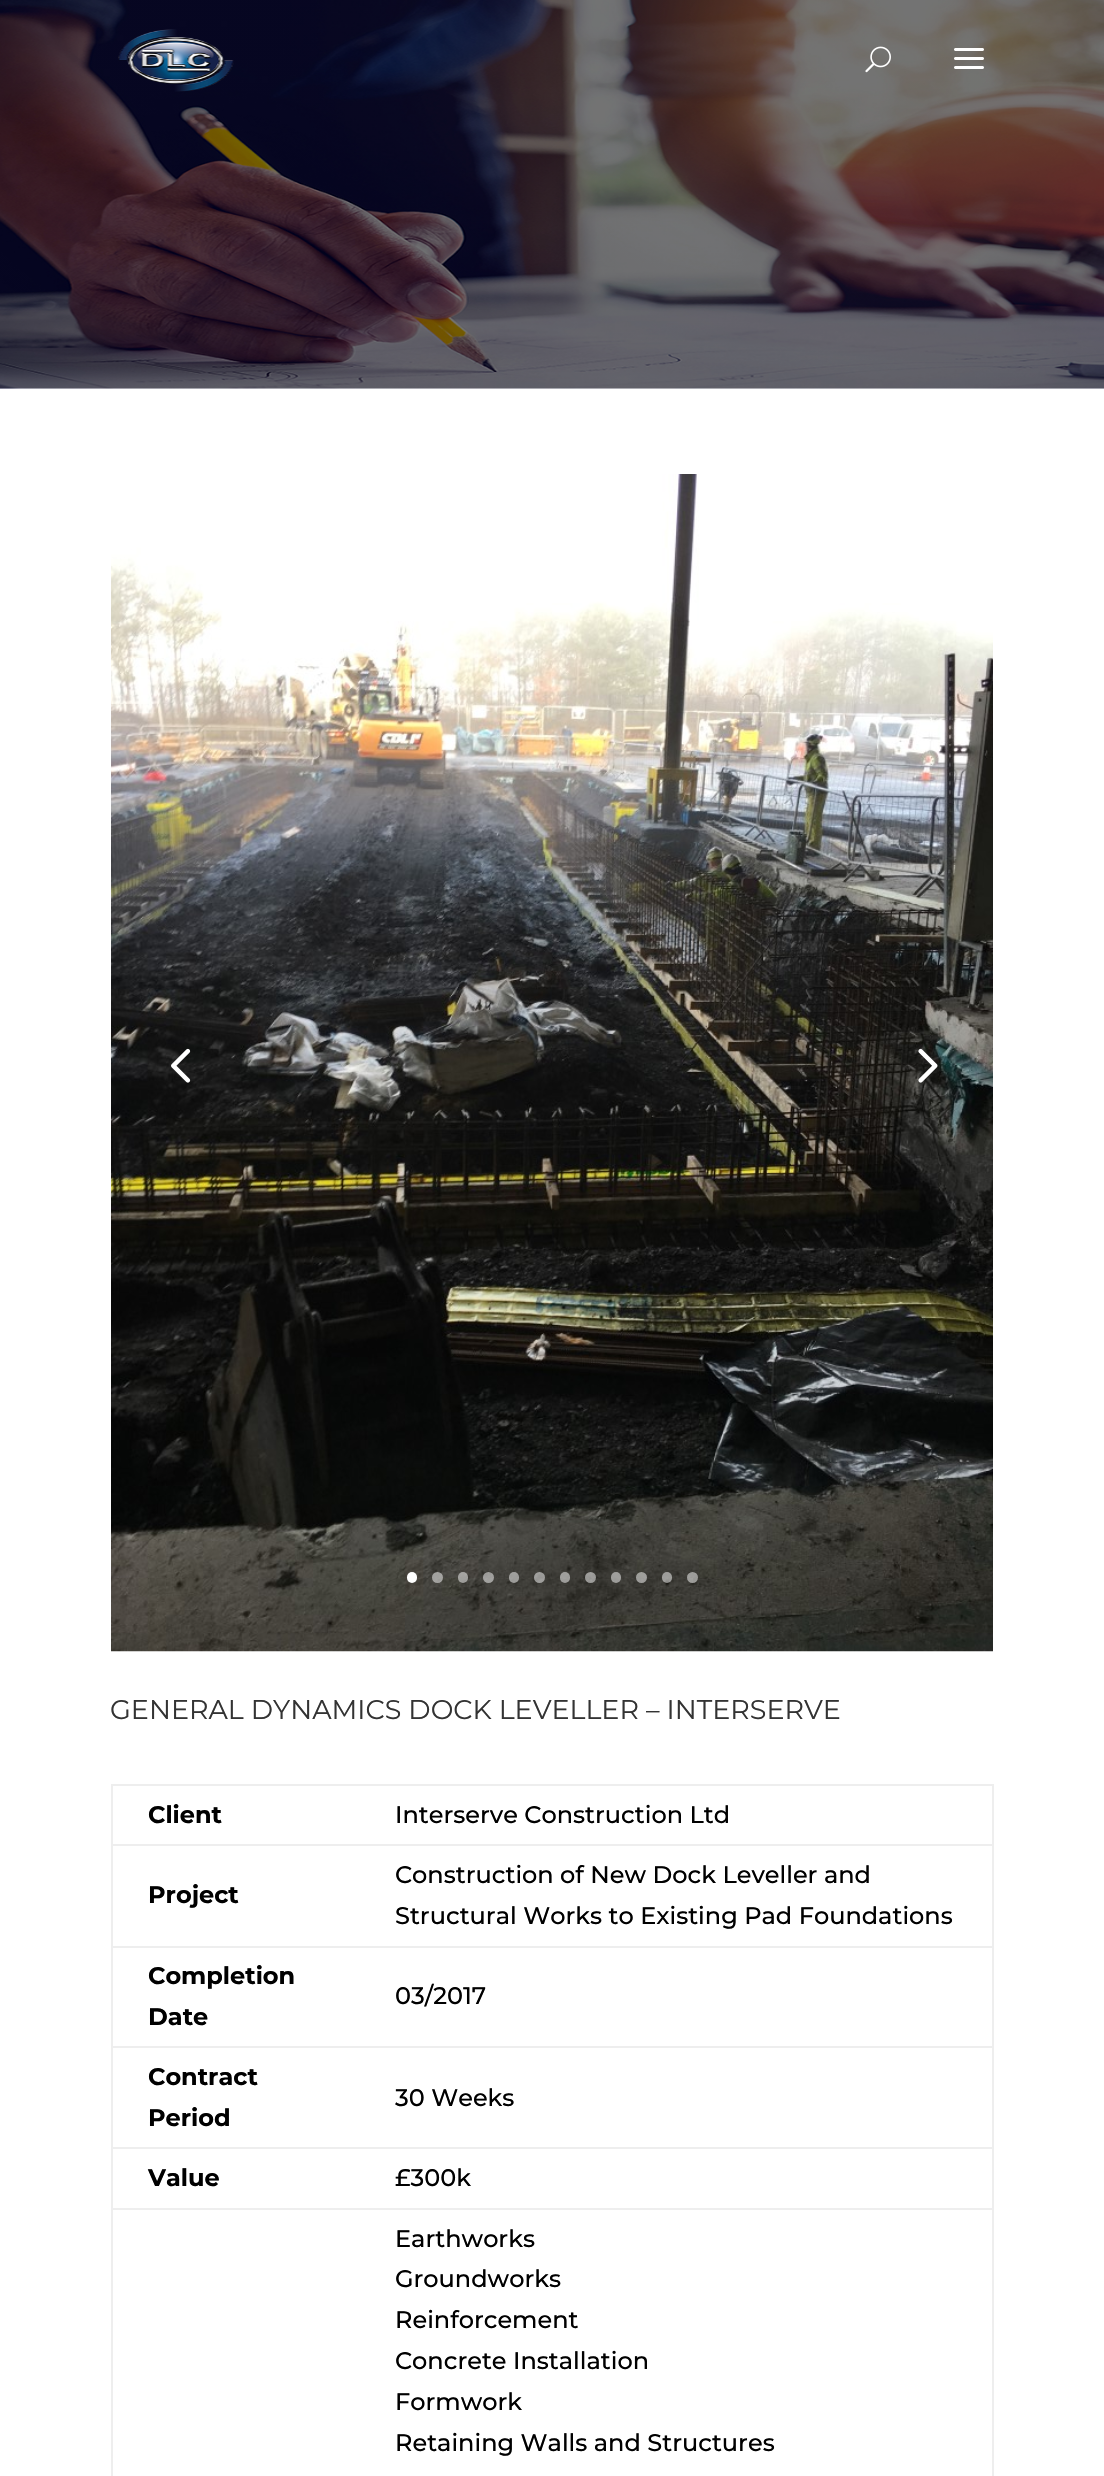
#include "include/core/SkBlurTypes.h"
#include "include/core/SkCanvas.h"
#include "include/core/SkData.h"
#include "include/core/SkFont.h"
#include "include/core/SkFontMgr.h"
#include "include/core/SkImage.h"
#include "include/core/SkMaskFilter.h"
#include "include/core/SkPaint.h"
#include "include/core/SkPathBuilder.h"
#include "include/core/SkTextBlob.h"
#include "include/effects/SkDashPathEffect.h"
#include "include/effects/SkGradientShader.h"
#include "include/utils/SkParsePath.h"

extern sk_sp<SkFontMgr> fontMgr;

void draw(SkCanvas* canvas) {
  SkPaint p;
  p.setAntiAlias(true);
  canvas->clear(SK_ColorWHITE);
  canvas->drawImageRect(SkImages::DeferredFromEncodedData(SkData::MakeFromFileName("images/4.png")), SkRect::MakeLTRB(0, 0, 1104, 389), SkSamplingOptions());
  canvas->drawImageRect(SkImages::DeferredFromEncodedData(SkData::MakeFromFileName("images/1.png")), SkRect::MakeLTRB(118, 29, 234, 92), SkSamplingOptions());
  canvas->drawImageRect(SkImages::DeferredFromEncodedData(SkData::MakeFromFileName("images/2.png")), SkRect::MakeLTRB(865, 46, 891, 73), SkSamplingOptions());
  canvas->drawImageRect(SkImages::DeferredFromEncodedData(SkData::MakeFromFileName("images/3.png")), SkRect::MakeLTRB(954, 48, 984, 69), SkSamplingOptions());
  canvas->drawImageRect(SkImages::DeferredFromEncodedData(SkData::MakeFromFileName("images/5.png")), SkRect::MakeLTRB(111, 474, 993, 1652), SkSamplingOptions());
  canvas->drawImageRect(SkImages::DeferredFromEncodedData(SkData::MakeFromFileName("images/6.png")), SkRect::MakeLTRB(171, 1048, 191, 1083), SkSamplingOptions());
  canvas->drawImageRect(SkImages::DeferredFromEncodedData(SkData::MakeFromFileName("images/7.png")), SkRect::MakeLTRB(918, 1048, 938, 1083), SkSamplingOptions());
  p.setColor(SK_ColorWHITE);
  canvas->drawRoundRect(SkRect::MakeLTRB(407, 1572, 417, 1583), 5, 5, p);
  p.setColor(SkColorSetARGB(128, 255, 255, 255));
  canvas->drawCircle(437.5f, 1577.5f, 5.5f, p);
  canvas->drawRoundRect(SkRect::MakeLTRB(458, 1572, 468, 1583), 5, 5, p);
  canvas->drawCircle(488.5f, 1577.5f, 5.5f, p);
  canvas->drawRoundRect(SkRect::MakeLTRB(509, 1572, 519, 1583), 5, 5, p);
  canvas->drawCircle(539.5f, 1577.5f, 5.5f, p);
  canvas->drawRoundRect(SkRect::MakeLTRB(560, 1572, 570, 1583), 5, 5, p);
  canvas->drawCircle(590.5f, 1577.5f, 5.5f, p);
  canvas->drawRoundRect(SkRect::MakeLTRB(611, 1572, 621, 1583), 5, 5, p);
  canvas->drawCircle(641.5f, 1577.5f, 5.5f, p);
  canvas->drawRoundRect(SkRect::MakeLTRB(662, 1572, 672, 1583), 5, 5, p);
  canvas->drawCircle(692.5f, 1577.5f, 5.5f, p);
  p.setColor(SkColorSetRGB(238, 238, 238));
  canvas->drawRect(SkRect::MakeLTRB(111, 1784, 993, 1786), p);
  canvas->drawRect(SkRect::MakeLTRB(992, 1784, 994, 2476), p);
  canvas->drawRect(SkRect::MakeLTRB(111, 1784, 113, 2476), p);
  canvas->drawRect(SkRect::MakeLTRB(111, 1844, 993, 1846), p);
  canvas->drawRect(SkRect::MakeLTRB(111, 1946, 993, 1948), p);
  canvas->drawRect(SkRect::MakeLTRB(111, 2046, 993, 2048), p);
  canvas->drawRect(SkRect::MakeLTRB(111, 2147, 993, 2149), p);
  canvas->drawRect(SkRect::MakeLTRB(111, 2208, 993, 2210), p);
  SkFont font1(fontMgr->matchFamilyStyle("Montserrat", SkFontStyle::Normal()), 27);
  font1.setSubpixel(true);
  p.setColor(SkColorSetRGB(51, 51, 51));
  canvas->drawString("GENERAL DYNAMICS DOCK LEVELLER – INTERSERVE", 110, 1719, font1, p);
  SkFont font2(fontMgr->matchFamilyStyle("Montserrat", SkFontStyle::Bold()), 24);
  font2.setSubpixel(true);
  p.setColor(SK_ColorBLACK);
  canvas->drawString("Client", 148, 1823, font2, p);
  SkFont font3(fontMgr->matchFamilyStyle("Montserrat", SkFontStyle(500, SkFontStyle::kNormal_Width, SkFontStyle::kUpright_Slant)), 24);
  font3.setSubpixel(true);
  canvas->drawString("Interserve Construction Ltd", 395, 1823, font3, p);
  canvas->drawString("Project", 148, 1903, font2, p);
  canvas->drawString("Construction of New Dock Leveller and", 395, 1883, font3, p);
  canvas->drawString("Structural Works to Existing Pad Foundations", 395, 1924, font3, p);
  canvas->drawString("Completion", 148, 1984, font2, p);
  canvas->drawString("Date", 148, 2025, font2, p);
  canvas->drawString("03/2017", 395, 2004, font3, p);
  canvas->drawString("Contract", 148, 2085, font2, p);
  canvas->drawString("Period", 148, 2126, font2, p);
  canvas->drawString("30 Weeks", 395, 2106, font3, p);
  canvas->drawString("Value", 148, 2186, font2, p);
  canvas->drawString("£300k", 395, 2186, font3, p);
  canvas->drawString("Earthworks", 395, 2247, font3, p);
  canvas->drawString("Groundworks", 395, 2287, font3, p);
  canvas->drawString("Reinforcement", 395, 2328, font3, p);
  canvas->drawString("Concrete Installation", 395, 2369, font3, p);
  canvas->drawString("Formwork", 395, 2410, font3, p);
  canvas->drawString("Retaining Walls and Structures", 395, 2451, font3, p);
}
